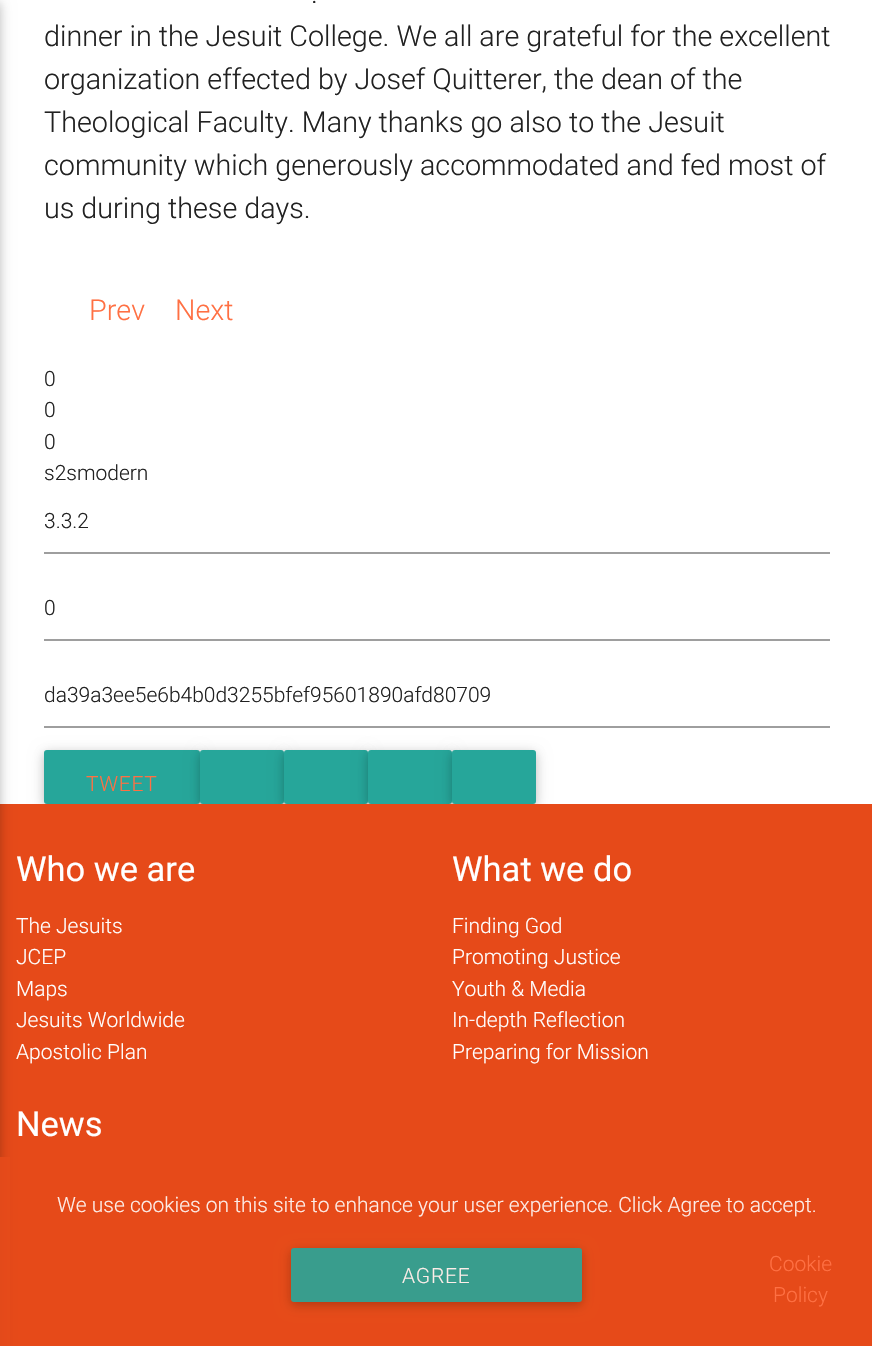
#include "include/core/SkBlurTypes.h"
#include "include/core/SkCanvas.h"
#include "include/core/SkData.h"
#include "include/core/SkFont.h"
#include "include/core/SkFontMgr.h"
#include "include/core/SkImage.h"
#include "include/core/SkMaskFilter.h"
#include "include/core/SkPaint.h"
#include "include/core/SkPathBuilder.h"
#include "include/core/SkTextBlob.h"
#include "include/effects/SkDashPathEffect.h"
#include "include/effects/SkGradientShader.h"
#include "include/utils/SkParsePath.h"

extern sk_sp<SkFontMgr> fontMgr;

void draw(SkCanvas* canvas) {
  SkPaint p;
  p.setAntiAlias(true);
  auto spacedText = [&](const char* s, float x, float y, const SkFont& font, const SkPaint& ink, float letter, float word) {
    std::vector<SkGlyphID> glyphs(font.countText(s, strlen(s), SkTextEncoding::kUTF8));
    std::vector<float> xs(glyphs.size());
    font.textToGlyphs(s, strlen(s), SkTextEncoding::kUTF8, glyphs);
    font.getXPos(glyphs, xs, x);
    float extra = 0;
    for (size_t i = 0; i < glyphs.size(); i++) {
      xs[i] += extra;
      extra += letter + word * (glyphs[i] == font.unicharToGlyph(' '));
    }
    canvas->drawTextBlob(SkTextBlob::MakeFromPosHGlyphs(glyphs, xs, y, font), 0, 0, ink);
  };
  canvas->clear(SK_ColorWHITE);
  p.setColor(SkColorSetARGB(31, 0, 0, 0));
  p.setMaskFilter(SkMaskFilter::MakeBlur(kNormal_SkBlurStyle, 7.5f));
  canvas->drawRoundRect(SkRect::MakeLTRB(44, 753, 200, 807), 3, 3, p);
  p.setMaskFilter(nullptr);
  p.setColor(SkColorSetARGB(41, 0, 0, 0));
  p.setMaskFilter(SkMaskFilter::MakeBlur(kNormal_SkBlurStyle, 4));
  canvas->drawRoundRect(SkRect::MakeLTRB(44, 753, 200, 807), 3, 3, p);
  p.setMaskFilter(nullptr);
  p.setColor(SkColorSetRGB(38, 166, 154));
  canvas->drawRoundRect(SkRect::MakeLTRB(44, 750, 200, 804), 3, 3, p);
  p.setColor(SkColorSetARGB(31, 0, 0, 0));
  p.setMaskFilter(SkMaskFilter::MakeBlur(kNormal_SkBlurStyle, 7.5f));
  canvas->drawRoundRect(SkRect::MakeLTRB(200, 753, 284, 807), 3, 3, p);
  p.setMaskFilter(nullptr);
  p.setColor(SkColorSetARGB(41, 0, 0, 0));
  p.setMaskFilter(SkMaskFilter::MakeBlur(kNormal_SkBlurStyle, 4));
  canvas->drawRoundRect(SkRect::MakeLTRB(200, 753, 284, 807), 3, 3, p);
  p.setMaskFilter(nullptr);
  p.setColor(SkColorSetRGB(38, 166, 154));
  canvas->drawRoundRect(SkRect::MakeLTRB(200, 750, 284, 804), 3, 3, p);
  p.setColor(SkColorSetARGB(31, 0, 0, 0));
  p.setMaskFilter(SkMaskFilter::MakeBlur(kNormal_SkBlurStyle, 7.5f));
  canvas->drawRoundRect(SkRect::MakeLTRB(284, 753, 368, 807), 3, 3, p);
  p.setMaskFilter(nullptr);
  p.setColor(SkColorSetARGB(41, 0, 0, 0));
  p.setMaskFilter(SkMaskFilter::MakeBlur(kNormal_SkBlurStyle, 4));
  canvas->drawRoundRect(SkRect::MakeLTRB(284, 753, 368, 807), 3, 3, p);
  p.setMaskFilter(nullptr);
  p.setColor(SkColorSetRGB(38, 166, 154));
  canvas->drawRoundRect(SkRect::MakeLTRB(284, 750, 368, 804), 3, 3, p);
  p.setColor(SkColorSetARGB(31, 0, 0, 0));
  p.setMaskFilter(SkMaskFilter::MakeBlur(kNormal_SkBlurStyle, 7.5f));
  canvas->drawRoundRect(SkRect::MakeLTRB(368, 753, 452, 807), 3, 3, p);
  p.setMaskFilter(nullptr);
  p.setColor(SkColorSetARGB(41, 0, 0, 0));
  p.setMaskFilter(SkMaskFilter::MakeBlur(kNormal_SkBlurStyle, 4));
  canvas->drawRoundRect(SkRect::MakeLTRB(368, 753, 452, 807), 3, 3, p);
  p.setMaskFilter(nullptr);
  p.setColor(SkColorSetRGB(38, 166, 154));
  canvas->drawRoundRect(SkRect::MakeLTRB(368, 750, 452, 804), 3, 3, p);
  p.setColor(SkColorSetARGB(31, 0, 0, 0));
  p.setMaskFilter(SkMaskFilter::MakeBlur(kNormal_SkBlurStyle, 7.5f));
  canvas->drawRoundRect(SkRect::MakeLTRB(452, 753, 536, 807), 3, 3, p);
  p.setMaskFilter(nullptr);
  p.setColor(SkColorSetARGB(41, 0, 0, 0));
  p.setMaskFilter(SkMaskFilter::MakeBlur(kNormal_SkBlurStyle, 4));
  canvas->drawRoundRect(SkRect::MakeLTRB(452, 753, 536, 807), 3, 3, p);
  p.setMaskFilter(nullptr);
  p.setColor(SkColorSetRGB(230, 74, 25));
  canvas->drawRect(SkRect::MakeLTRB(0, 804, 872, 1346), p);
  p.setColor(SkColorSetARGB(31, 0, 0, 0));
  p.setMaskFilter(SkMaskFilter::MakeBlur(kNormal_SkBlurStyle, 7.5f));
  canvas->drawRect(SkRect::MakeLTRB(-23, 3, 0, 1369), p);
  p.setMaskFilter(nullptr);
  p.setColor(SkColorSetARGB(41, 0, 0, 0));
  p.setMaskFilter(SkMaskFilter::MakeBlur(kNormal_SkBlurStyle, 4));
  canvas->drawRect(SkRect::MakeLTRB(-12, 3, 0, 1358), p);
  p.setMaskFilter(nullptr);
  p.setColor(SkColorSetRGB(158, 158, 158));
  canvas->drawRect(SkRect::MakeLTRB(44, 552, 830, 554), p);
  canvas->drawRect(SkRect::MakeLTRB(44, 639, 830, 641), p);
  canvas->drawRect(SkRect::MakeLTRB(44, 726, 830, 728), p);
  p.setColor(SkColorSetRGB(38, 166, 154));
  canvas->drawRoundRect(SkRect::MakeLTRB(452, 750, 536, 804), 3, 3, p);
  p.setColor(SkColorSetARGB(230, 230, 74, 25));
  canvas->drawRect(SkRect::MakeLTRB(0, 1157, 10, 1346), p);
  p.setColor(SkColorSetARGB(31, 23, 7, 3));
  p.setMaskFilter(SkMaskFilter::MakeBlur(kNormal_SkBlurStyle, 7.5f));
  canvas->drawRoundRect(SkRect::MakeLTRB(291, 1251, 582, 1305), 3, 3, p);
  p.setMaskFilter(nullptr);
  p.setColor(SkColorSetARGB(41, 23, 7, 3));
  p.setMaskFilter(SkMaskFilter::MakeBlur(kNormal_SkBlurStyle, 4));
  canvas->drawRoundRect(SkRect::MakeLTRB(291, 1251, 582, 1305), 3, 3, p);
  p.setMaskFilter(nullptr);
  p.setColor(SkColorSetRGB(57, 157, 141));
  canvas->drawRoundRect(SkRect::MakeLTRB(291, 1248, 582, 1302), 3, 3, p);
  SkFont font1(fontMgr->matchFamilyStyle("Roboto", SkFontStyle(300, SkFontStyle::kNormal_Width, SkFontStyle::kUpright_Slant)), 28.75f);
  font1.setSubpixel(true);
  p.setColor(SkColorSetRGB(33, 33, 33));
  canvas->drawString(".", 311, 3, font1, p);
  canvas->drawString("dinner in the Jesuit College. We all are grateful for the excellent", 44, 46, font1, p);
  canvas->drawString("organization effected by Josef Quitterer, the dean of the", 44, 89, font1, p);
  canvas->drawString("Theological Faculty. Many thanks go also to the Jesuit", 44, 132, font1, p);
  canvas->drawString("community which generously accommodated and fed most of", 44, 175, font1, p);
  canvas->drawString("us during these days.", 44, 218, font1, p);
  p.setColor(SkColorSetRGB(255, 112, 67));
  canvas->drawString("Prev", 89, 320, font1, p);
  canvas->drawString("Next", 175, 320, font1, p);
  SkFont font2(fontMgr->matchFamilyStyle("Roboto", SkFontStyle(300, SkFontStyle::kNormal_Width, SkFontStyle::kUpright_Slant)), 21);
  font2.setSubpixel(true);
  p.setColor(SkColorSetRGB(33, 33, 33));
  canvas->drawString("0", 44, 386, font2, p);
  canvas->drawString("0", 44, 417, font2, p);
  canvas->drawString("0", 44, 449, font2, p);
  canvas->drawString("s2smodern", 44, 480, font2, p);
  canvas->drawString("3.3.2", 44, 528, font2, p);
  canvas->drawString("0", 44, 615, font2, p);
  canvas->drawString("da39a3ee5e6b4b0d3255bfef95601890afd80709", 44, 702, font2, p);
  p.setColor(SkColorSetRGB(255, 112, 67));
  spacedText("TWEET", 86, 791, font2, p, 0.75f, 0);
  SkFont font3(fontMgr->matchFamilyStyle("Roboto", SkFontStyle::Normal()), 34.5f);
  font3.setSubpixel(true);
  p.setColor(SK_ColorWHITE);
  canvas->drawString("Who we are", 16, 881, font3, p);
  canvas->drawString("The Jesuits", 16, 933, font2, p);
  canvas->drawString("JCEP", 16, 964, font2, p);
  canvas->drawString("Maps", 16, 996, font2, p);
  canvas->drawString("Jesuits Worldwide", 16, 1027, font2, p);
  canvas->drawString("Apostolic Plan", 16, 1059, font2, p);
  canvas->drawString("What we do", 452, 881, font3, p);
  canvas->drawString("Finding God", 452, 933, font2, p);
  canvas->drawString("Promoting Justice", 452, 964, font2, p);
  canvas->drawString("Youth & Media", 452, 996, font2, p);
  canvas->drawString("In-depth Reflection", 452, 1027, font2, p);
  canvas->drawString("Preparing for Mission", 452, 1059, font2, p);
  canvas->drawString("News", 16, 1136, font3, p);
  p.setColor(SkColorSetRGB(253, 237, 232));
  canvas->drawString("We use cookies on this site to enhance your user experience. Click Agree to accept.", 57, 1212, font2, p);
  spacedText("AGREE", 402, 1283, font2, p, 0.75f, 0);
  p.setColor(SkColorSetRGB(255, 112, 67));
  canvas->drawString("Cookie", 769, 1271, font2, p);
  canvas->drawString("Policy", 773, 1302, font2, p);
}
